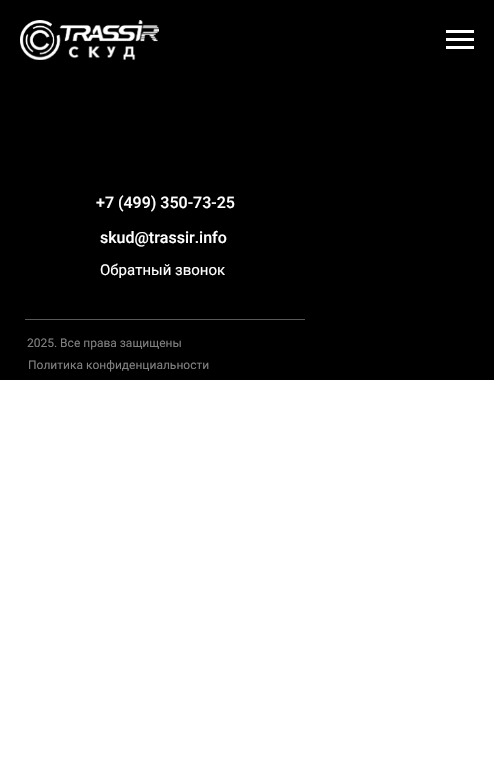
#include "include/core/SkBlurTypes.h"
#include "include/core/SkCanvas.h"
#include "include/core/SkData.h"
#include "include/core/SkFont.h"
#include "include/core/SkFontMgr.h"
#include "include/core/SkImage.h"
#include "include/core/SkMaskFilter.h"
#include "include/core/SkPaint.h"
#include "include/core/SkPathBuilder.h"
#include "include/core/SkTextBlob.h"
#include "include/effects/SkDashPathEffect.h"
#include "include/effects/SkGradientShader.h"
#include "include/utils/SkParsePath.h"

extern sk_sp<SkFontMgr> fontMgr;

void draw(SkCanvas* canvas) {
  SkPaint p;
  p.setAntiAlias(true);
  canvas->clear(SK_ColorWHITE);
  p.setColor(SK_ColorBLACK);
  canvas->drawRect(SkRect::MakeLTRB(0, 0, 494, 380), p);
  canvas->drawImageRect(SkImages::DeferredFromEncodedData(SkData::MakeFromFileName("images/1.png")), SkRect::MakeLTRB(20, 20, 159, 60), SkSamplingOptions());
  p.setColor(SK_ColorWHITE);
  canvas->drawRect(SkRect::MakeLTRB(446, 30, 474, 33), p);
  canvas->drawRect(SkRect::MakeLTRB(446, 38, 474, 41), p);
  canvas->drawRect(SkRect::MakeLTRB(446, 46, 474, 49), p);
  p.setColor(SkColorSetRGB(89, 89, 89));
  canvas->drawRect(SkRect::MakeLTRB(25, 319, 305, 320), p);
  SkFont font1(fontMgr->matchFamilyStyle("Roboto", SkFontStyle(500, SkFontStyle::kNormal_Width, SkFontStyle::kUpright_Slant)), 16);
  font1.setSubpixel(true);
  p.setColor(SK_ColorWHITE);
  canvas->drawString("+7 (499) 350-73-25", 96, 208, font1, p);
  canvas->drawString("skud@trassir.info", 100, 243, font1, p);
  SkFont font2(fontMgr->matchFamilyStyle("Roboto", SkFontStyle::Normal()), 15);
  font2.setSubpixel(true);
  canvas->drawString("Обратный звонок", 100, 275, font2, p);
  SkFont font3(fontMgr->matchFamilyStyle("Roboto", SkFontStyle::Normal()), 12);
  font3.setSubpixel(true);
  p.setColor(SkColorSetRGB(128, 128, 128));
  canvas->drawString("2025. Все права защищены", 27, 347, font3, p);
  canvas->drawString("Политика конфиденциальности", 28, 369, font3, p);
}
